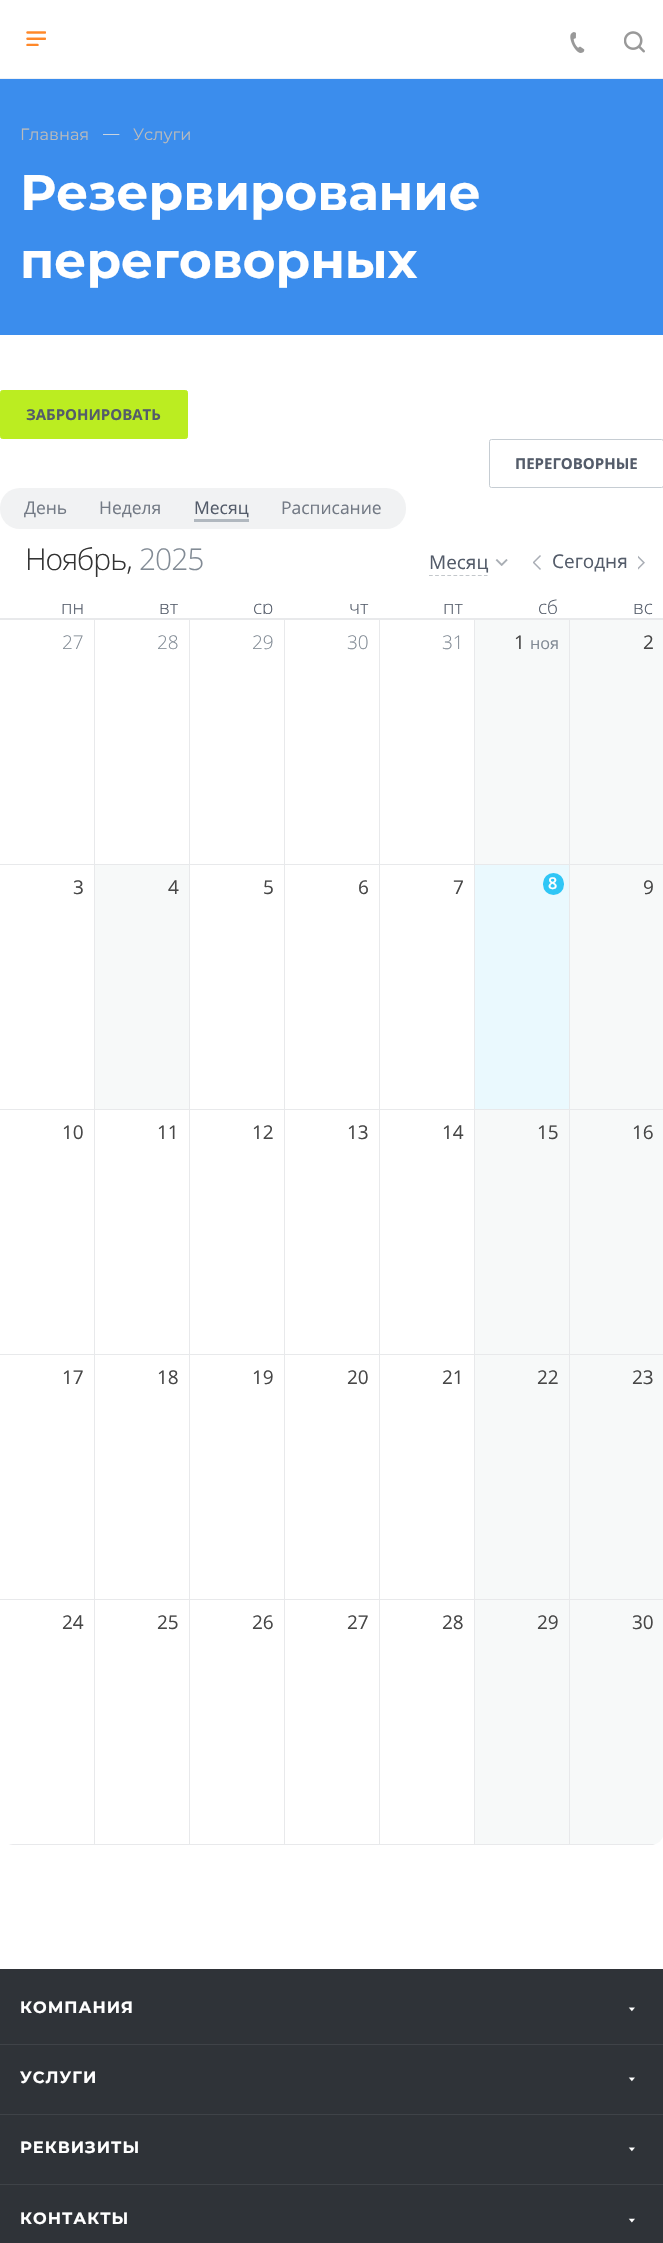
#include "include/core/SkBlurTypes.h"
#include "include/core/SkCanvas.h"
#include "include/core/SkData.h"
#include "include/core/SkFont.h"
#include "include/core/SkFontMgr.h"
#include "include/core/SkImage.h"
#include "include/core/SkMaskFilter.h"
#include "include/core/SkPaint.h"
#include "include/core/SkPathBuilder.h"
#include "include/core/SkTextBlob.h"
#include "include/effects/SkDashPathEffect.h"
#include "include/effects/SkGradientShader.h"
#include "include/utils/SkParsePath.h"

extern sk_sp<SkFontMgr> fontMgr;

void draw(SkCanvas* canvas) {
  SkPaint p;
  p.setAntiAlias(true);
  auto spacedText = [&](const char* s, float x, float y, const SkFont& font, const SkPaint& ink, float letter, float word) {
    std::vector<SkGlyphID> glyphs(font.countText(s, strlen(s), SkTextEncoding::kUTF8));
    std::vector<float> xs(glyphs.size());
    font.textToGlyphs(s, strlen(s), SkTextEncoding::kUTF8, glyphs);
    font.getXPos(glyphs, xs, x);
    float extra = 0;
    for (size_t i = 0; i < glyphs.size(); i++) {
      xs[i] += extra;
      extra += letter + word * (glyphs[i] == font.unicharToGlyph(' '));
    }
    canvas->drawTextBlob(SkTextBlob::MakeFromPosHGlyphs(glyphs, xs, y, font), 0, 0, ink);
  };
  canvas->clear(SK_ColorWHITE);
  p.setColor(SkColorSetRGB(239, 241, 245));
  canvas->drawRect(SkRect::MakeLTRB(0, 78, 663, 79), p);
  canvas->drawImageRect(SkImages::DeferredFromEncodedData(SkData::MakeFromFileName("images/1.png")), SkRect::MakeLTRB(26, 31, 46, 46), SkSamplingOptions());
  canvas->drawImageRect(SkImages::DeferredFromEncodedData(SkData::MakeFromFileName("images/2.png")), SkRect::MakeLTRB(570, 32, 585, 53), SkSamplingOptions());
  canvas->drawImageRect(SkImages::DeferredFromEncodedData(SkData::MakeFromFileName("images/3.png")), SkRect::MakeLTRB(624, 31, 645, 53), SkSamplingOptions());
  p.setColor(SkColorSetRGB(59, 141, 237));
  canvas->drawRect(SkRect::MakeLTRB(0, 79, 663, 335), p);
  p.setColor(SkColorSetRGB(187, 237, 33));
  canvas->drawRoundRect(SkRect::MakeLTRB(0.5f, 390.5f, 187.5f, 438.5f), 2, 2, p);
  p.setStyle(SkPaint::kStroke_Style);
  p.setStrokeWidth(1);
  canvas->drawRoundRect(SkRect::MakeLTRB(0.5f, 390.5f, 187.5f, 438.5f), 2, 2, p);
  p.setColor(SkColorSetRGB(198, 205, 211));
  canvas->drawRoundRect(SkRect::MakeLTRB(489.5f, 439.5f, 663.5f, 487.5f), 2, 2, p);
  p.setStyle(SkPaint::kFill_Style);
  p.setColor(SkColorSetRGB(241, 242, 243));
  canvas->drawRoundRect(SkRect::MakeLTRB(0, 488, 406, 529), 20, 20, p);
  p.setColor(SkColorSetRGB(177, 184, 191));
  canvas->drawRect(SkRect::MakeLTRB(194, 519, 249, 522), p);
  p.setStyle(SkPaint::kStroke_Style);
  p.setStrokeWidth(1.2f);
  p.setColor(SkColorSetRGB(195, 199, 203));
  p.setPathEffect(SkDashPathEffect::Make({{3.75f, 2.36f}}, 0));
  canvas->drawPath(SkPathBuilder().moveTo(429, 575.5f).lineTo(487.5f, 575.5f).detach(), p);
  p.setPathEffect(nullptr);
  canvas->drawImageRect(SkImages::DeferredFromEncodedData(SkData::MakeFromFileName("images/4.png")), SkRect::MakeLTRB(495, 559, 508, 566), SkSamplingOptions());
  canvas->drawImageRect(SkImages::DeferredFromEncodedData(SkData::MakeFromFileName("images/5.png")), SkRect::MakeLTRB(533, 555, 541, 570), SkSamplingOptions());
  canvas->drawImageRect(SkImages::DeferredFromEncodedData(SkData::MakeFromFileName("images/6.png")), SkRect::MakeLTRB(638, 555, 645, 570), SkSamplingOptions());
  p.setStyle(SkPaint::kFill_Style);
  p.setColor(SkColorSetRGB(232, 233, 235));
  canvas->drawRect(SkRect::MakeLTRB(0, 618, 663, 620), p);
  canvas->drawRect(SkRect::MakeLTRB(0, 864, 663, 865), p);
  canvas->drawRect(SkRect::MakeLTRB(94, 620, 95, 864), p);
  canvas->drawRect(SkRect::MakeLTRB(189, 620, 190, 864), p);
  canvas->drawRect(SkRect::MakeLTRB(284, 620, 285, 864), p);
  canvas->drawRect(SkRect::MakeLTRB(379, 620, 380, 864), p);
  canvas->drawRect(SkRect::MakeLTRB(474, 620, 475, 864), p);
  p.setColor(SkColorSetRGB(247, 249, 249));
  canvas->drawRect(SkRect::MakeLTRB(475, 620, 569, 864), p);
  p.setColor(SkColorSetRGB(232, 233, 235));
  canvas->drawRect(SkRect::MakeLTRB(569, 620, 570, 864), p);
  p.setColor(SkColorSetRGB(247, 249, 249));
  canvas->drawRect(SkRect::MakeLTRB(570, 620, 663, 864), p);
  p.setColor(SkColorSetRGB(232, 233, 235));
  canvas->drawRect(SkRect::MakeLTRB(0, 1109, 663, 1110), p);
  canvas->drawRect(SkRect::MakeLTRB(94, 865, 95, 1109), p);
  p.setColor(SkColorSetRGB(247, 249, 249));
  canvas->drawRect(SkRect::MakeLTRB(95, 865, 189, 1109), p);
  p.setColor(SkColorSetRGB(232, 233, 235));
  canvas->drawRect(SkRect::MakeLTRB(189, 865, 190, 1109), p);
  canvas->drawRect(SkRect::MakeLTRB(284, 865, 285, 1109), p);
  canvas->drawRect(SkRect::MakeLTRB(379, 865, 380, 1109), p);
  canvas->drawRect(SkRect::MakeLTRB(474, 865, 475, 1109), p);
  p.setColor(SkColorSetRGB(234, 249, 254));
  canvas->drawRect(SkRect::MakeLTRB(475, 865, 569, 1109), p);
  p.setColor(SkColorSetRGB(47, 198, 246));
  canvas->drawRoundRect(SkRect::MakeLTRB(543, 873, 564, 895), 10.5f, 10.5f, p);
  p.setColor(SkColorSetRGB(232, 233, 235));
  canvas->drawRect(SkRect::MakeLTRB(569, 865, 570, 1109), p);
  p.setColor(SkColorSetRGB(247, 249, 249));
  canvas->drawRect(SkRect::MakeLTRB(570, 865, 663, 1109), p);
  p.setColor(SkColorSetRGB(232, 233, 235));
  canvas->drawRect(SkRect::MakeLTRB(0, 1354, 663, 1355), p);
  canvas->drawRect(SkRect::MakeLTRB(94, 1110, 95, 1354), p);
  canvas->drawRect(SkRect::MakeLTRB(189, 1110, 190, 1354), p);
  canvas->drawRect(SkRect::MakeLTRB(284, 1110, 285, 1354), p);
  canvas->drawRect(SkRect::MakeLTRB(379, 1110, 380, 1354), p);
  canvas->drawRect(SkRect::MakeLTRB(474, 1110, 475, 1354), p);
  p.setColor(SkColorSetRGB(247, 249, 249));
  canvas->drawRect(SkRect::MakeLTRB(475, 1110, 569, 1354), p);
  p.setColor(SkColorSetRGB(232, 233, 235));
  canvas->drawRect(SkRect::MakeLTRB(569, 1110, 570, 1354), p);
  p.setColor(SkColorSetRGB(247, 249, 249));
  canvas->drawRect(SkRect::MakeLTRB(570, 1110, 663, 1354), p);
  p.setColor(SkColorSetRGB(232, 233, 235));
  canvas->drawRect(SkRect::MakeLTRB(0, 1599, 663, 1600), p);
  canvas->drawRect(SkRect::MakeLTRB(94, 1355, 95, 1599), p);
  canvas->drawRect(SkRect::MakeLTRB(189, 1355, 190, 1599), p);
  canvas->drawRect(SkRect::MakeLTRB(284, 1355, 285, 1599), p);
  canvas->drawRect(SkRect::MakeLTRB(379, 1355, 380, 1599), p);
  canvas->drawRect(SkRect::MakeLTRB(474, 1355, 475, 1599), p);
  p.setColor(SkColorSetRGB(247, 249, 249));
  canvas->drawRect(SkRect::MakeLTRB(475, 1355, 569, 1599), p);
  p.setColor(SkColorSetRGB(232, 233, 235));
  canvas->drawRect(SkRect::MakeLTRB(569, 1355, 570, 1599), p);
  p.setColor(SkColorSetRGB(247, 249, 249));
  canvas->drawRect(SkRect::MakeLTRB(570, 1355, 663, 1599), p);
  canvas->save();
  canvas->clipPath(SkPathBuilder().moveTo(0, 589).lineTo(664, 589).lineTo(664, 1832).cubicTo(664, 1839, 658, 1845, 651, 1845).lineTo(13, 1845).cubicTo(6, 1845, 0, 1839, 0, 1832).close().detach(), true);
  canvas->clipPath(SkPathBuilder().moveTo(0, 620).lineTo(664, 620).lineTo(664, 1832).cubicTo(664, 1839, 658, 1845, 651, 1845).lineTo(13, 1845).cubicTo(6, 1845, 0, 1839, 0, 1832).close().detach(), true);
  p.setColor(SkColorSetRGB(232, 233, 235));
  canvas->drawRect(SkRect::MakeLTRB(0, 1844, 663, 1845), p);
  canvas->restore();
  canvas->drawRect(SkRect::MakeLTRB(94, 1600, 95, 1844), p);
  canvas->drawRect(SkRect::MakeLTRB(189, 1600, 190, 1844), p);
  canvas->drawRect(SkRect::MakeLTRB(284, 1600, 285, 1844), p);
  canvas->drawRect(SkRect::MakeLTRB(379, 1600, 380, 1844), p);
  canvas->drawRect(SkRect::MakeLTRB(474, 1600, 475, 1844), p);
  p.setColor(SkColorSetRGB(247, 249, 249));
  canvas->drawRect(SkRect::MakeLTRB(475, 1600, 569, 1844), p);
  p.setColor(SkColorSetRGB(232, 233, 235));
  canvas->drawRect(SkRect::MakeLTRB(569, 1600, 570, 1844), p);
  canvas->save();
  canvas->clipPath(SkPathBuilder().moveTo(0, 589).lineTo(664, 589).lineTo(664, 1832).cubicTo(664, 1839, 658, 1845, 651, 1845).lineTo(13, 1845).cubicTo(6, 1845, 0, 1839, 0, 1832).close().detach(), true);
  canvas->clipPath(SkPathBuilder().moveTo(0, 620).lineTo(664, 620).lineTo(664, 1832).cubicTo(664, 1839, 658, 1845, 651, 1845).lineTo(13, 1845).cubicTo(6, 1845, 0, 1839, 0, 1832).close().detach(), true);
  p.setColor(SkColorSetRGB(247, 249, 249));
  canvas->drawRect(SkRect::MakeLTRB(570, 1600, 663, 1844), p);
  canvas->restore();
  p.setColor(SkColorSetRGB(47, 51, 56));
  canvas->drawRect(SkRect::MakeLTRB(0, 1969, 663, 2243), p);
  canvas->drawImageRect(SkImages::DeferredFromEncodedData(SkData::MakeFromFileName("images/7.png")), SkRect::MakeLTRB(628, 2007, 635, 2012), SkSamplingOptions());
  p.setColor(SkColorSetRGB(63, 67, 72));
  canvas->drawRect(SkRect::MakeLTRB(0, 2044, 663, 2045), p);
  canvas->drawImageRect(SkImages::DeferredFromEncodedData(SkData::MakeFromFileName("images/7.png")), SkRect::MakeLTRB(628, 2077, 635, 2082), SkSamplingOptions());
  canvas->drawRect(SkRect::MakeLTRB(0, 2114, 663, 2115), p);
  canvas->drawImageRect(SkImages::DeferredFromEncodedData(SkData::MakeFromFileName("images/7.png")), SkRect::MakeLTRB(628, 2147, 635, 2152), SkSamplingOptions());
  canvas->drawRect(SkRect::MakeLTRB(0, 2184, 663, 2185), p);
  canvas->drawImageRect(SkImages::DeferredFromEncodedData(SkData::MakeFromFileName("images/8.png")), SkRect::MakeLTRB(628, 2218, 635, 2223), SkSamplingOptions());
  SkFont font1(fontMgr->matchFamilyStyle("Montserrat", SkFontStyle::Normal()), 16.25f);
  font1.setSubpixel(true);
  p.setColor(SkColorSetRGB(187, 187, 187));
  canvas->drawString("Главная", 20, 140, font1, p);
  p.setColor(SkColorSetRGB(221, 221, 221));
  canvas->drawString("—", 103, 139, font1, p);
  p.setColor(SkColorSetRGB(187, 187, 187));
  canvas->drawString("Услуги", 133, 140, font1, p);
  SkFont font2(fontMgr->matchFamilyStyle("Montserrat", SkFontStyle::Bold()), 50);
  font2.setSubpixel(true);
  p.setColor(SK_ColorWHITE);
  canvas->drawString("Резервирование", 20, 210, font2, p);
  canvas->drawString("переговорных", 20, 278, font2, p);
  SkFont font3(fontMgr->matchFamilyStyle("Open Sans", SkFontStyle::Bold()), 15);
  font3.setSubpixel(true);
  p.setColor(SkColorSetRGB(84, 92, 106));
  canvas->drawString("ЗАБРОНИРОВАТЬ", 26, 420, font3, p);
  canvas->drawString("ПЕРЕГОВОРНЫЕ", 515, 469, font3, p);
  SkFont font4(fontMgr->matchFamilyStyle("Open Sans", SkFontStyle::Normal()), 17.5f);
  font4.setSubpixel(true);
  p.setColor(SkColorSetRGB(115, 122, 133));
  canvas->drawString("День", 24, 514, font4, p);
  canvas->drawString("Неделя", 99, 514, font4, p);
  p.setColor(SkColorSetRGB(84, 92, 106));
  canvas->drawString("Месяц", 194, 514, font4, p);
  p.setColor(SkColorSetRGB(115, 122, 133));
  canvas->drawString("Расписание", 281, 514, font4, p);
  SkFont font5(fontMgr->matchFamilyStyle("Open Sans", SkFontStyle(300, SkFontStyle::kNormal_Width, SkFontStyle::kUpright_Slant)), 30);
  font5.setSubpixel(true);
  p.setColor(SkColorSetRGB(51, 51, 51));
  spacedText("Ноябрь,", 25, 570, font5, p, -1, 0);
  p.setColor(SkColorSetRGB(130, 139, 149));
  spacedText("2025", 139, 570, font5, p, -1, 0);
  SkFont font6(fontMgr->matchFamilyStyle("Open Sans", SkFontStyle::Normal()), 19);
  font6.setSubpixel(true);
  p.setColor(SkColorSetRGB(84, 92, 106));
  canvas->drawString("Месяц", 429, 569, font6, p);
  canvas->drawString("Сегодня", 552, 568, font6, p);
  SkFont font7(fontMgr->matchFamilyStyle("Open Sans", SkFontStyle(300, SkFontStyle::kNormal_Width, SkFontStyle::kUpright_Slant)), 19);
  font7.setSubpixel(true);
  canvas->drawString("пн", 61, 614, font7, p);
  canvas->drawString("вт", 159, 614, font7, p);
  canvas->save();
  canvas->clipRect(SkRect::MakeLTRB(190, 589, 285, 614));
  canvas->drawString("ср", 253, 614, font7, p);
  canvas->restore();
  canvas->drawString("чт", 349, 614, font7, p);
  canvas->drawString("пт", 443, 614, font7, p);
  canvas->save();
  canvas->clipRect(SkRect::MakeLTRB(474, 589, 569, 614));
  canvas->drawString("сб", 538, 614, font7, p);
  canvas->restore();
  canvas->drawString("вс", 633, 614, font7, p);
  p.setColor(SkColorSetRGB(130, 139, 149));
  canvas->drawString("27", 62, 649, font7, p);
  canvas->drawString("28", 157, 649, font7, p);
  canvas->drawString("29", 252, 649, font7, p);
  canvas->drawString("30", 347, 649, font7, p);
  canvas->drawString("31", 442, 649, font7, p);
  p.setColor(SkColorSetRGB(71, 71, 71));
  canvas->drawString("1", 514, 649, font6, p);
  SkFont font8(fontMgr->matchFamilyStyle("Open Sans", SkFontStyle::Normal()), 16.25f);
  font8.setSubpixel(true);
  p.setColor(SkColorSetRGB(130, 139, 149));
  canvas->drawString("ноя", 530, 649, font8, p);
  p.setColor(SkColorSetRGB(71, 71, 71));
  canvas->drawString("2", 643, 649, font6, p);
  canvas->drawString("3", 73, 894, font6, p);
  canvas->drawString("4", 168, 894, font6, p);
  canvas->drawString("5", 263, 894, font6, p);
  canvas->drawString("6", 358, 894, font6, p);
  canvas->drawString("7", 453, 894, font6, p);
  SkFont font9(fontMgr->matchFamilyStyle("Open Sans", SkFontStyle(600, SkFontStyle::kNormal_Width, SkFontStyle::kUpright_Slant)), 16.25f);
  font9.setSubpixel(true);
  p.setColor(SK_ColorWHITE);
  canvas->drawString("8", 548, 889, font9, p);
  p.setColor(SkColorSetRGB(71, 71, 71));
  canvas->drawString("9", 643, 894, font6, p);
  canvas->drawString("10", 62, 1139, font6, p);
  canvas->drawString("11", 157, 1139, font6, p);
  canvas->drawString("12", 252, 1139, font6, p);
  canvas->drawString("13", 347, 1139, font6, p);
  canvas->drawString("14", 442, 1139, font6, p);
  canvas->drawString("15", 537, 1139, font6, p);
  canvas->drawString("16", 632, 1139, font6, p);
  canvas->drawString("17", 62, 1384, font6, p);
  canvas->drawString("18", 157, 1384, font6, p);
  canvas->drawString("19", 252, 1384, font6, p);
  canvas->drawString("20", 347, 1384, font6, p);
  canvas->drawString("21", 442, 1384, font6, p);
  canvas->drawString("22", 537, 1384, font6, p);
  canvas->drawString("23", 632, 1384, font6, p);
  canvas->drawString("24", 62, 1629, font6, p);
  canvas->drawString("25", 157, 1629, font6, p);
  canvas->drawString("26", 252, 1629, font6, p);
  canvas->drawString("27", 347, 1629, font6, p);
  canvas->drawString("28", 442, 1629, font6, p);
  canvas->drawString("29", 537, 1629, font6, p);
  canvas->drawString("30", 632, 1629, font6, p);
  SkFont font10(fontMgr->matchFamilyStyle("Montserrat", SkFontStyle::Bold()), 16.25f);
  font10.setSubpixel(true);
  p.setColor(SK_ColorWHITE);
  spacedText("КОМПАНИЯ", 20, 2013, font10, p, 1, 0);
  spacedText("УСЛУГИ", 20, 2083, font10, p, 1, 0);
  spacedText("РЕКВИЗИТЫ", 20, 2153, font10, p, 1, 0);
  spacedText("КОНТАКТЫ", 20, 2224, font10, p, 1, 0);
}
